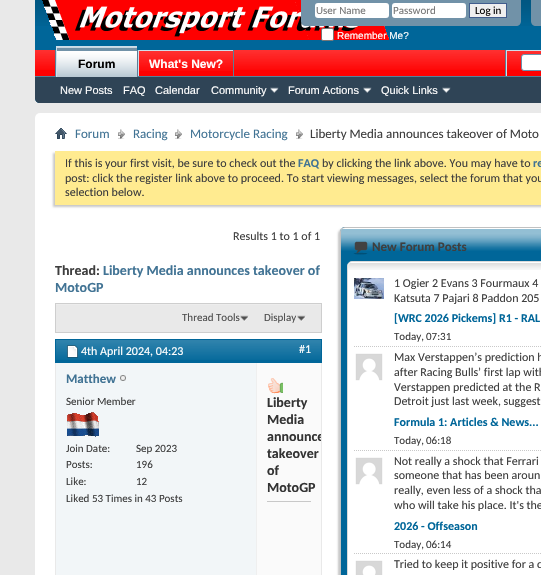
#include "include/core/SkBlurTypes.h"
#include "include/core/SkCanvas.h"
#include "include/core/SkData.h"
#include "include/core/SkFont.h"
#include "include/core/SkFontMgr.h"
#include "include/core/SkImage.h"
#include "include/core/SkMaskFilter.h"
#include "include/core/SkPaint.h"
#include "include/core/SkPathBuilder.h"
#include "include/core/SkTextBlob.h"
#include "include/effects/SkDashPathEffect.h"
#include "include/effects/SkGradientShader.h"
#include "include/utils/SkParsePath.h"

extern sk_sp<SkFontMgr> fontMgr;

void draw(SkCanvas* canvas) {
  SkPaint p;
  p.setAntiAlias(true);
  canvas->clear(SkColorSetRGB(233, 233, 233));
  p.setColor(SkColorSetRGB(0, 102, 153));
  canvas->drawPath(SkPathBuilder().moveTo(35, 0).lineTo(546, 0).lineTo(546, 98).cubicTo(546, 101, 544, 103, 541, 103).lineTo(40, 103).cubicTo(37, 103, 35, 101, 35, 98).close().detach(), p);
  canvas->drawImageRect(SkImages::DeferredFromEncodedData(SkData::MakeFromFileName("images/1.png")), SkRect::MakeLTRB(35, 0, 536, 26), SkSamplingOptions());
  canvas->drawImageRect(SkImages::DeferredFromEncodedData(SkData::MakeFromFileName("images/2.png")), SkRect::MakeLTRB(42, 0, 389, 40), SkSamplingOptions());
  p.setColor(SkColorSetRGB(113, 146, 168));
  canvas->drawPath(SkPathBuilder().moveTo(301, 0).lineTo(521, 0).lineTo(521, 21).cubicTo(521, 24, 519, 26, 516, 26).lineTo(306, 26).cubicTo(303, 26, 301, 24, 301, 21).close().detach(), p);
  p.setColor(SK_ColorWHITE);
  canvas->drawRoundRect(SkRect::MakeLTRB(315, 3, 389, 18), 3, 3, p);
  canvas->drawRoundRect(SkRect::MakeLTRB(392, 3, 466, 18), 3, 3, p);
  p.setColor(SkColorSetRGB(239, 239, 239));
  canvas->drawRect(SkRect::MakeLTRB(469.5f, 3.5f, 506.5f, 17.5f), p);
  p.setStyle(SkPaint::kStroke_Style);
  p.setStrokeWidth(1);
  p.setColor(SkColorSetRGB(65, 93, 141));
  canvas->drawRect(SkRect::MakeLTRB(469.5f, 3.5f, 506.5f, 17.5f), p);
  p.setStyle(SkPaint::kFill_Style);
  p.setColor(SK_ColorWHITE);
  canvas->drawRoundRect(SkRect::MakeLTRB(321.5f, 28.5f, 333.5f, 40.5f), 1.5f, 1.5f, p);
  p.setStyle(SkPaint::kStroke_Style);
  p.setColor(SkColorSetRGB(118, 118, 118));
  canvas->drawRoundRect(SkRect::MakeLTRB(321.5f, 28.5f, 333.5f, 40.5f), 1.5f, 1.5f, p);
  p.setStyle(SkPaint::kFill_Style);
  p.setColor(SkColorSetRGB(113, 146, 168));
  canvas->drawPath(SkPathBuilder().moveTo(531, 0).lineTo(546, 0).lineTo(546, 21).cubicTo(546, 24, 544, 26, 541, 26).lineTo(536, 26).cubicTo(533, 26, 531, 24, 531, 21).close().detach(), p);
  p.setColor(SkColorSetRGB(47, 68, 86));
  canvas->drawPath(SkPathBuilder().moveTo(35, 50).lineTo(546, 50).lineTo(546, 98).cubicTo(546, 101, 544, 103, 541, 103).lineTo(40, 103).cubicTo(37, 103, 35, 101, 35, 98).close().detach(), p);
  p.setColor(SkColorSetRGB(255, 0, 0));
  canvas->drawRect(SkRect::MakeLTRB(35, 50, 541, 76), p);
  canvas->drawImageRect(SkImages::DeferredFromEncodedData(SkData::MakeFromFileName("images/3.png")), SkRect::MakeLTRB(35, 50, 541, 70), SkSamplingOptions());
  p.setColor(SkColorSetRGB(90, 127, 151));
  canvas->drawRect(SkRect::MakeLTRB(137, 50, 138, 76), p);
  canvas->drawRect(SkRect::MakeLTRB(55, 50, 56, 76), p);
  canvas->drawRect(SkRect::MakeLTRB(233, 50, 234, 77), p);
  p.setColor(SkColorSetRGB(206, 223, 235));
  canvas->drawRect(SkRect::MakeLTRB(138, 50, 233, 51), p);
  canvas->drawRect(SkRect::MakeLTRB(138, 50, 139, 77), p);
  p.setColor(SkColorSetRGB(90, 127, 151));
  canvas->drawRect(SkRect::MakeLTRB(35, 76, 541, 77), p);
  p.setColor(SkColorSetRGB(113, 146, 168));
  canvas->drawRect(SkRect::MakeLTRB(57, 47, 137, 77), p);
  canvas->drawImageRect(SkImages::DeferredFromEncodedData(SkData::MakeFromFileName("images/4.png")), SkRect::MakeLTRB(57, 47, 137, 77), SkSamplingOptions());
  p.setColor(SkColorSetRGB(206, 223, 235));
  canvas->drawRect(SkRect::MakeLTRB(56, 46, 137, 47), p);
  canvas->drawRect(SkRect::MakeLTRB(56, 46, 57, 77), p);
  p.setColor(SkColorSetRGB(255, 0, 0));
  canvas->drawRect(SkRect::MakeLTRB(139, 51, 233, 70), p);
  canvas->drawImageRect(SkImages::DeferredFromEncodedData(SkData::MakeFromFileName("images/5.png")), SkRect::MakeLTRB(139, 51, 233, 71), SkSamplingOptions());
  canvas->drawImageRect(SkImages::DeferredFromEncodedData(SkData::MakeFromFileName("images/6.png")), SkRect::MakeLTRB(270, 87, 279, 93), SkSamplingOptions());
  canvas->drawImageRect(SkImages::DeferredFromEncodedData(SkData::MakeFromFileName("images/6.png")), SkRect::MakeLTRB(363, 87, 372, 93), SkSamplingOptions());
  canvas->drawImageRect(SkImages::DeferredFromEncodedData(SkData::MakeFromFileName("images/6.png")), SkRect::MakeLTRB(442, 87, 451, 93), SkSamplingOptions());
  p.setColor(SkColorSetRGB(90, 127, 151));
  canvas->drawRect(SkRect::MakeLTRB(505, 50, 506, 76), p);
  p.setColor(SkColorSetRGB(206, 223, 235));
  canvas->drawRect(SkRect::MakeLTRB(506, 50, 541, 51), p);
  canvas->drawRect(SkRect::MakeLTRB(506, 50, 507, 76), p);
  p.setColor(SK_ColorWHITE);
  canvas->drawRoundRect(SkRect::MakeLTRB(521.5f, 54.5f, 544.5f, 70.5f), 2.5f, 2.5f, p);
  p.setStyle(SkPaint::kStroke_Style);
  p.setColor(SkColorSetRGB(107, 145, 171));
  canvas->drawRoundRect(SkRect::MakeLTRB(521.5f, 54.5f, 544.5f, 70.5f), 2.5f, 2.5f, p);
  p.setStyle(SkPaint::kFill_Style);
  p.setColor(SK_ColorWHITE);
  canvas->drawRoundRect(SkRect::MakeLTRB(35, 113, 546, 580), 5, 5, p);
  canvas->drawImageRect(SkImages::DeferredFromEncodedData(SkData::MakeFromFileName("images/7.png")), SkRect::MakeLTRB(55, 128, 67, 139), SkSamplingOptions());
  canvas->drawImageRect(SkImages::DeferredFromEncodedData(SkData::MakeFromFileName("images/8.png")), SkRect::MakeLTRB(118, 129, 125, 139), SkSamplingOptions());
  canvas->drawImageRect(SkImages::DeferredFromEncodedData(SkData::MakeFromFileName("images/8.png")), SkRect::MakeLTRB(175, 129, 182, 139), SkSamplingOptions());
  canvas->drawImageRect(SkImages::DeferredFromEncodedData(SkData::MakeFromFileName("images/8.png")), SkRect::MakeLTRB(296, 129, 303, 139), SkSamplingOptions());
  p.setColor(SkColorSetRGB(200, 200, 200));
  p.setMaskFilter(SkMaskFilter::MakeBlur(kNormal_SkBlurStyle, 1));
  canvas->drawRect(SkRect::MakeLTRB(53, 153, 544, 207), p);
  p.setMaskFilter(nullptr);
  p.setColor(SkColorSetRGB(255, 235, 144));
  canvas->drawRect(SkRect::MakeLTRB(55, 151, 541, 205), p);
  p.setColor(SkColorSetRGB(233, 233, 233));
  canvas->drawRect(SkRect::MakeLTRB(56, 305, 321, 332), p);
  p.setColor(SkColorSetRGB(237, 237, 237));
  canvas->drawRect(SkRect::MakeLTRB(55, 304, 322, 305), p);
  p.setStyle(SkPaint::kStroke_Style);
  p.setColor(SkColorSetRGB(206, 206, 206));
  canvas->drawRect(SkRect::MakeLTRB(55.5f, 303.5f, 321.5f, 332.5f), p);
  canvas->drawImageRect(SkImages::DeferredFromEncodedData(SkData::MakeFromFileName("images/9.png")), SkRect::MakeLTRB(240, 315, 249, 322), SkSamplingOptions());
  canvas->drawImageRect(SkImages::DeferredFromEncodedData(SkData::MakeFromFileName("images/9.png")), SkRect::MakeLTRB(297, 315, 306, 322), SkSamplingOptions());
  p.setColor(SkColorSetRGB(233, 233, 233));
  canvas->drawRect(SkRect::MakeLTRB(55.5f, 339.5f, 321.5f, 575.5f), p);
  p.setStyle(SkPaint::kFill_Style);
  p.setColor(SkColorSetRGB(0, 102, 153));
  canvas->drawRect(SkRect::MakeLTRB(56, 340, 321, 362), p);
  canvas->drawImageRect(SkImages::DeferredFromEncodedData(SkData::MakeFromFileName("images/10.png")), SkRect::MakeLTRB(56, 340, 321, 360), SkSamplingOptions());
  p.setStyle(SkPaint::kStroke_Style);
  canvas->drawRect(SkRect::MakeLTRB(55.5f, 339.5f, 321.5f, 362.5f), p);
  canvas->drawImageRect(SkImages::DeferredFromEncodedData(SkData::MakeFromFileName("images/11.png")), SkRect::MakeLTRB(67, 345, 78, 358), SkSamplingOptions());
  p.setStyle(SkPaint::kFill_Style);
  p.setColor(SkColorSetRGB(242, 246, 248));
  canvas->drawRect(SkRect::MakeLTRB(56, 363, 256, 575), p);
  canvas->drawImageRect(SkImages::DeferredFromEncodedData(SkData::MakeFromFileName("images/12.png")), SkRect::MakeLTRB(120, 375, 126, 381), SkSamplingOptions());
  canvas->drawImageRect(SkImages::DeferredFromEncodedData(SkData::MakeFromFileName("images/13.png")), SkRect::MakeLTRB(67, 412, 99, 437), SkSamplingOptions());
  p.setColor(SkColorSetRGB(250, 250, 250));
  canvas->drawRect(SkRect::MakeLTRB(257, 363, 321, 575), p);
  p.setColor(SkColorSetRGB(239, 239, 239));
  canvas->drawRect(SkRect::MakeLTRB(256, 363, 257, 575), p);
  p.setColor(SkColorSetRGB(200, 200, 200));
  canvas->drawRect(SkRect::MakeLTRB(267, 501, 311, 502), p);
  canvas->drawImageRect(SkImages::DeferredFromEncodedData(SkData::MakeFromFileName("images/14.png")), SkRect::MakeLTRB(268, 378, 283, 394), SkSamplingOptions());
  p.setMaskFilter(SkMaskFilter::MakeBlur(kNormal_SkBlurStyle, 1));
  canvas->drawRoundRect(SkRect::MakeLTRB(338, 229, 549, 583), 5, 5, p);
  p.setMaskFilter(nullptr);
  p.setColor(SkColorSetRGB(0, 102, 153));
  canvas->drawRoundRect(SkRect::MakeLTRB(340, 227, 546, 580), 5, 5, p);
  canvas->drawImageRect(SkImages::DeferredFromEncodedData(SkData::MakeFromFileName("images/15.png")), SkRect::MakeLTRB(340, 228, 541, 251), SkSamplingOptions());
  p.setStyle(SkPaint::kStroke_Style);
  p.setColor(SkColorSetRGB(193, 193, 193));
  canvas->drawRoundRect(SkRect::MakeLTRB(340.5f, 227.5f, 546.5f, 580.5f), 4.5f, 4.5f, p);
  canvas->drawImageRect(SkImages::DeferredFromEncodedData(SkData::MakeFromFileName("images/16.png")), SkRect::MakeLTRB(353, 241, 368, 255), SkSamplingOptions());
  p.setStyle(SkPaint::kFill_Style);
  p.setColor(SK_ColorWHITE);
  canvas->drawRoundRect(SkRect::MakeLTRB(347.5f, 261.5f, 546.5f, 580.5f), 4.5f, 4.5f, p);
  p.setStyle(SkPaint::kStroke_Style);
  p.setColor(SkColorSetRGB(218, 218, 218));
  canvas->drawRoundRect(SkRect::MakeLTRB(347.5f, 261.5f, 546.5f, 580.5f), 4.5f, 4.5f, p);
  p.setStyle(SkPaint::kFill_Style);
  p.setColor(SK_ColorWHITE);
  canvas->drawRoundRect(SkRect::MakeLTRB(348, 262, 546, 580), 5, 5, p);
  canvas->drawImageRect(SkImages::DeferredFromEncodedData(SkData::MakeFromFileName("images/17.png")), SkRect::MakeLTRB(348, 263, 541, 270), SkSamplingOptions());
  canvas->drawImageRect(SkImages::DeferredFromEncodedData(SkData::MakeFromFileName("images/18.png")), SkRect::MakeLTRB(354, 278, 384, 299), SkSamplingOptions());
  p.setStyle(SkPaint::kStroke_Style);
  p.setColor(SkColorSetRGB(201, 201, 201));
  p.setPathEffect(SkDashPathEffect::Make({{1, 1}}, 0));
  canvas->drawPath(SkPathBuilder().moveTo(354, 346.5f).lineTo(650, 346.5f).detach(), p);
  p.setPathEffect(nullptr);
  canvas->drawImageRect(SkImages::DeferredFromEncodedData(SkData::MakeFromFileName("images/19.png")), SkRect::MakeLTRB(355, 353, 383, 381), SkSamplingOptions());
  p.setPathEffect(SkDashPathEffect::Make({{1, 1}}, 0));
  canvas->drawPath(SkPathBuilder().moveTo(354, 450.5f).lineTo(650, 450.5f).detach(), p);
  p.setPathEffect(nullptr);
  canvas->drawImageRect(SkImages::DeferredFromEncodedData(SkData::MakeFromFileName("images/19.png")), SkRect::MakeLTRB(355, 457, 383, 485), SkSamplingOptions());
  p.setPathEffect(SkDashPathEffect::Make({{1, 1}}, 0));
  canvas->drawPath(SkPathBuilder().moveTo(354, 553.5f).lineTo(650, 553.5f).detach(), p);
  p.setPathEffect(nullptr);
  canvas->drawImageRect(SkImages::DeferredFromEncodedData(SkData::MakeFromFileName("images/20.png")), SkRect::MakeLTRB(355, 560, 383, 575), SkSamplingOptions());
  SkFont font1(fontMgr->matchFamilyStyle("Carlito", SkFontStyle::Normal()), 11);
  font1.setSubpixel(true);
  p.setStyle(SkPaint::kFill_Style);
  p.setColor(SkColorSetRGB(119, 119, 119));
  canvas->drawString("User Name", 316, 14, font1, p);
  canvas->drawString("Password", 393, 14, font1, p);
  p.setColor(SK_ColorBLACK);
  canvas->drawString("Log in", 475, 14, font1, p);
  SkFont font2(fontMgr->matchFamilyStyle("Liberation Sans", SkFontStyle::Normal()), 10);
  font2.setSubpixel(true);
  p.setColor(SK_ColorWHITE);
  canvas->drawString("Remember Me?", 337, 39, font2, p);
  SkFont font3(fontMgr->matchFamilyStyle("Liberation Sans", SkFontStyle::Bold()), 12);
  font3.setSubpixel(true);
  p.setColor(SK_ColorBLACK);
  canvas->drawString("Forum", 78, 68, font3, p);
  p.setColor(SK_ColorWHITE);
  canvas->drawString("What's New?", 149, 68, font3, p);
  SkFont font4(fontMgr->matchFamilyStyle("Liberation Sans", SkFontStyle::Normal()), 11);
  font4.setSubpixel(true);
  canvas->drawString("New Posts", 60, 94, font4, p);
  canvas->drawString("FAQ", 123, 94, font4, p);
  canvas->drawString("Calendar", 155, 94, font4, p);
  canvas->drawString("Community", 211, 94, font4, p);
  canvas->drawString("Forum Actions", 288, 94, font4, p);
  canvas->drawString("Quick Links", 381, 94, font4, p);
  SkFont font5(fontMgr->matchFamilyStyle("Carlito", SkFontStyle::Normal()), 13);
  font5.setSubpixel(true);
  p.setColor(SkColorSetRGB(65, 115, 148));
  canvas->drawString("Forum", 75, 138, font5, p);
  canvas->drawString("Racing", 133, 138, font5, p);
  canvas->drawString("Motorcycle Racing", 190, 138, font5, p);
  p.setColor(SkColorSetRGB(62, 62, 62));
  canvas->drawString("Liberty Media announces takeover of Moto", 310, 138, font5, p);
  SkFont font6(fontMgr->matchFamilyStyle("Carlito", SkFontStyle::Normal()), 12);
  font6.setSubpixel(true);
  canvas->drawString("If this is your first visit, be sure to check out the", 65, 167, font6, p);
  SkFont font7(fontMgr->matchFamilyStyle("Carlito", SkFontStyle::Bold()), 12);
  font7.setSubpixel(true);
  p.setColor(SkColorSetRGB(65, 115, 148));
  canvas->drawString("FAQ", 298, 167, font7, p);
  p.setColor(SkColorSetRGB(62, 62, 62));
  canvas->drawString("by clicking the link above. You may have to", 322, 167, font6, p);
  p.setColor(SkColorSetRGB(65, 115, 148));
  canvas->drawString("re", 533, 167, font7, p);
  p.setColor(SkColorSetRGB(62, 62, 62));
  canvas->drawString("post: click the register link above to proceed. To start viewing messages, select the forum that you", 65, 182, font6, p);
  canvas->drawString("selection below.", 65, 196, font6, p);
  canvas->drawString("Results 1 to 1 of 1", 233, 240, font6, p);
  SkFont font8(fontMgr->matchFamilyStyle("Carlito", SkFontStyle::Bold()), 14);
  font8.setSubpixel(true);
  canvas->drawString("Thread:", 55, 275, font8, p);
  p.setColor(SkColorSetRGB(65, 115, 148));
  canvas->drawString("Liberty Media announces takeover of", 103, 275, font8, p);
  canvas->drawString("MotoGP", 55, 292, font8, p);
  p.setColor(SkColorSetRGB(78, 78, 78));
  canvas->drawString("Thread Tools", 182, 321, font1, p);
  canvas->drawString("Display", 264, 321, font1, p);
  p.setColor(SK_ColorWHITE);
  canvas->drawString("4th April 2024, 04:23", 81, 355, font6, p);
  canvas->drawString("#1", 299, 353, font6, p);
  SkFont font9(fontMgr->matchFamilyStyle("Carlito", SkFontStyle::Bold()), 13);
  font9.setSubpixel(true);
  p.setColor(SkColorSetRGB(65, 115, 148));
  canvas->drawString("Matthew", 66, 383, font9, p);
  p.setColor(SkColorSetRGB(62, 62, 62));
  canvas->drawString("Senior Member", 66, 405, font1, p);
  canvas->drawString("Join Date:", 66, 452, font1, p);
  canvas->drawString("Sep 2023", 136, 452, font1, p);
  canvas->drawString("Posts:", 66, 468, font1, p);
  canvas->drawString("196", 136, 468, font1, p);
  canvas->drawString("Like:", 66, 485, font1, p);
  canvas->drawString("12", 136, 485, font1, p);
  canvas->drawString("Liked 53 Times in 43 Posts", 66, 502, font1, p);
  p.setColor(SkColorSetRGB(51, 51, 51));
  canvas->drawString("Liberty", 267, 407, font8, p);
  canvas->drawString("Media", 267, 424, font8, p);
  canvas->save();
  canvas->clipRect(SkRect::MakeLTRB(257, 363, 321, 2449));
  canvas->drawString("announce", 267, 441, font8, p);
  canvas->restore();
  canvas->drawString("takeover", 267, 458, font8, p);
  canvas->drawString("of", 267, 475, font8, p);
  canvas->drawString("MotoGP", 267, 492, font8, p);
  p.setColor(SkColorSetRGB(62, 62, 62));
  canvas->drawString("New Forum Posts", 372, 251, font9, p);
  canvas->drawString("1 Ogier 2 Evans 3 Fourmaux 4", 394, 287, font6, p);
  canvas->drawString("Katsuta 7 Pajari 8 Paddon 205", 394, 302, font6, p);
  p.setColor(SkColorSetRGB(0, 102, 153));
  canvas->drawString("[WRC 2026 Pickems] R1 - RAL", 394, 322, font7, p);
  p.setColor(SkColorSetRGB(62, 62, 62));
  canvas->drawString("Today,", 394, 340, font1, p);
  canvas->drawString("07:31", 426, 340, font1, p);
  canvas->drawString("Max Verstappen’s prediction h", 394, 361, font6, p);
  canvas->drawString("after Racing Bulls’ first lap with", 394, 376, font6, p);
  canvas->drawString("Verstappen predicted at the R", 394, 391, font6, p);
  canvas->drawString("Detroit just last week, suggest", 394, 405, font6, p);
  p.setColor(SkColorSetRGB(0, 102, 153));
  canvas->drawString("Formula 1: Articles & News...", 394, 426, font7, p);
  p.setColor(SkColorSetRGB(62, 62, 62));
  canvas->drawString("Today,", 394, 444, font1, p);
  canvas->drawString("06:18", 426, 444, font1, p);
  canvas->drawString("Not really a shock that Ferrari", 394, 465, font6, p);
  canvas->drawString("someone that has been aroun", 394, 479, font6, p);
  canvas->drawString("really, even less of a shock tha", 394, 494, font6, p);
  canvas->drawString("who will take his place. It's the", 394, 509, font6, p);
  p.setColor(SkColorSetRGB(0, 102, 153));
  canvas->drawString("2026 - Offseason", 394, 530, font7, p);
  p.setColor(SkColorSetRGB(62, 62, 62));
  canvas->drawString("Today,", 394, 548, font1, p);
  canvas->drawString("06:14", 426, 548, font1, p);
  canvas->drawString("Tried to keep it positive for a c", 394, 568, font6, p);
}
